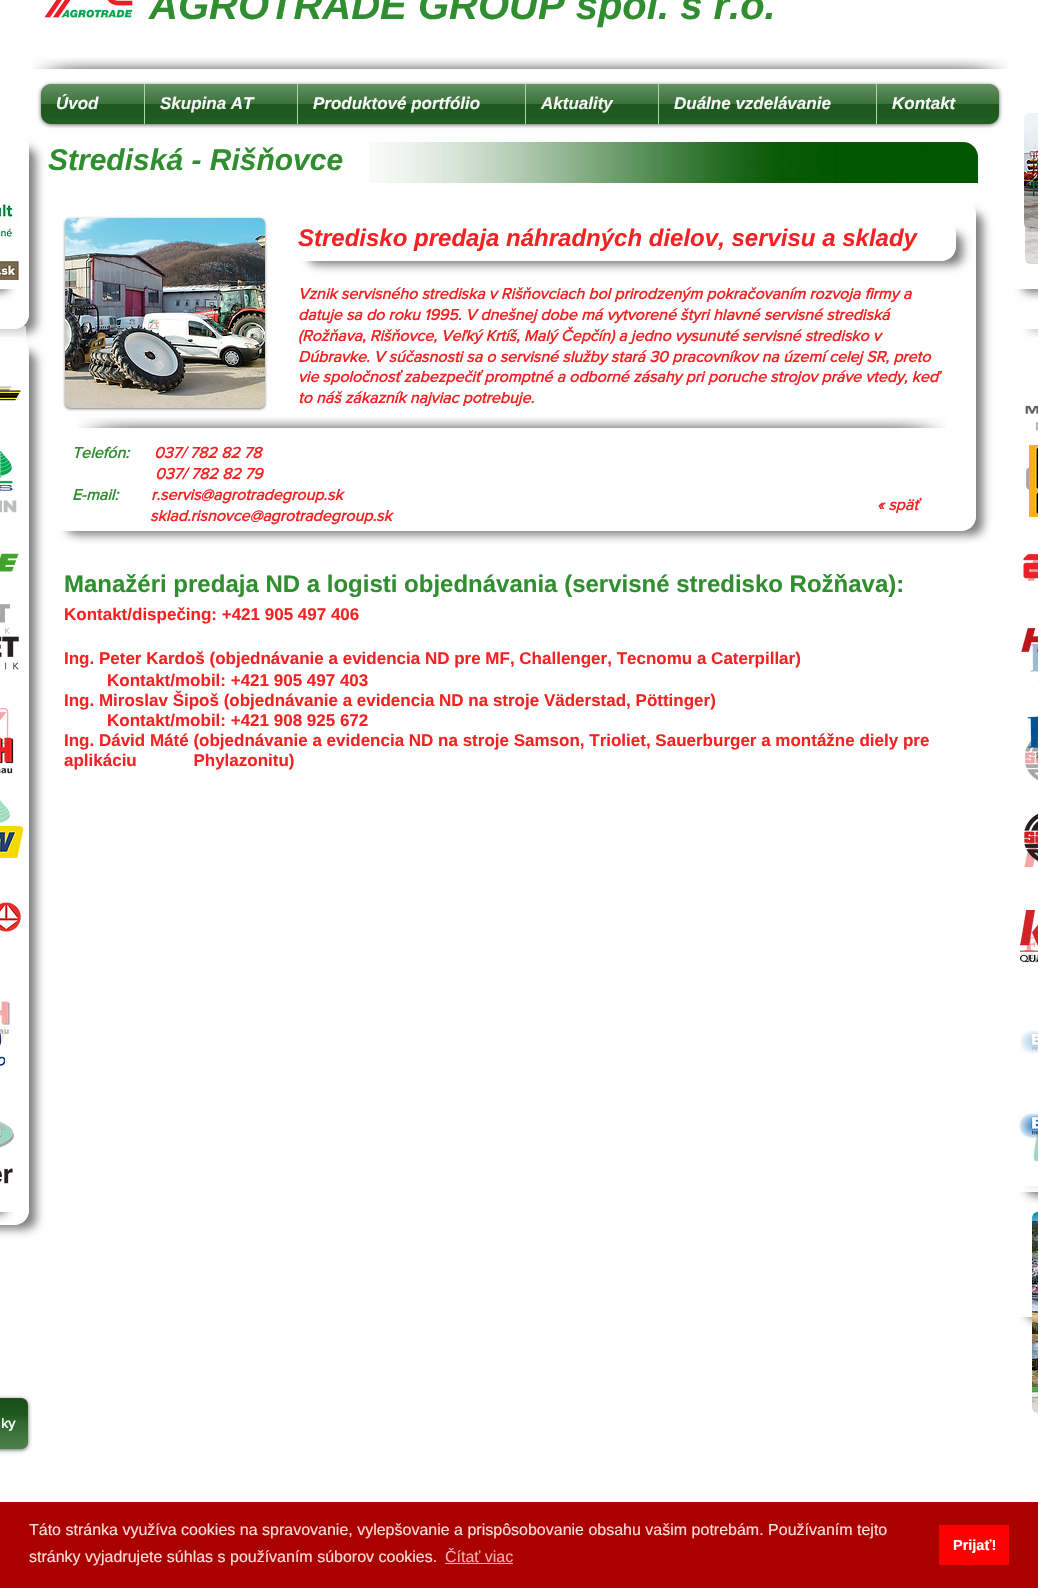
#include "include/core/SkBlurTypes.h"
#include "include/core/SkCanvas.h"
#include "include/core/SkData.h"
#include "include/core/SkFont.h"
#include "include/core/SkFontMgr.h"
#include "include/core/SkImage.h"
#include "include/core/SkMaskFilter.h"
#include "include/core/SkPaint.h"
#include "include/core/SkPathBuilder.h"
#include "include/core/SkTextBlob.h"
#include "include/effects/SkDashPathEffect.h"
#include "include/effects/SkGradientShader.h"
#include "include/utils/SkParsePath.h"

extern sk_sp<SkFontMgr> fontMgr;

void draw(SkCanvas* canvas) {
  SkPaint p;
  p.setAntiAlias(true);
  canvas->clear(SK_ColorWHITE);
  canvas->drawImageRect(SkImages::DeferredFromEncodedData(SkData::MakeFromFileName("images/1.png")), SkRect::MakeLTRB(44, 0, 133, 18), SkSamplingOptions());
  canvas->drawImageRect(SkImages::DeferredFromEncodedData(SkData::MakeFromFileName("images/2.png")), SkRect::MakeLTRB(32, 58, 129, 69), SkSamplingOptions());
  canvas->drawImageRect(SkImages::DeferredFromEncodedData(SkData::MakeFromFileName("images/3.png")), SkRect::MakeLTRB(129, 58, 912, 69), SkSamplingOptions());
  canvas->drawImageRect(SkImages::DeferredFromEncodedData(SkData::MakeFromFileName("images/4.png")), SkRect::MakeLTRB(912, 58, 1009, 69), SkSamplingOptions());
  p.setColor(SkColorSetARGB(153, 0, 0, 0));
  p.setMaskFilter(SkMaskFilter::MakeBlur(kNormal_SkBlurStyle, 2));
  canvas->drawRoundRect(SkRect::MakeLTRB(41, 85, 999, 125), 10, 10, p);
  p.setMaskFilter(nullptr);
  canvas->drawImageRect(SkImages::DeferredFromEncodedData(SkData::MakeFromFileName("images/5.png")), SkRect::MakeLTRB(41, 84, 999, 116), SkSamplingOptions());
  p.setColor(SkColorSetRGB(32, 95, 32));
  canvas->drawPath(SkPathBuilder().moveTo(51, 84).lineTo(144, 84).lineTo(144, 124).lineTo(51, 124).cubicTo(45.5f, 124, 41, 119.5f, 41, 114).lineTo(41, 94).cubicTo(41, 88.5f, 45.5f, 84, 51, 84).close().detach(), p);
  canvas->drawRect(SkRect::MakeLTRB(145, 84, 297, 124), p);
  p.setColor(SkColorSetRGB(169, 217, 169));
  canvas->drawRect(SkRect::MakeLTRB(144, 84, 145, 124), p);
  p.setColor(SkColorSetRGB(32, 95, 32));
  canvas->drawRect(SkRect::MakeLTRB(298, 84, 525, 124), p);
  p.setColor(SkColorSetRGB(169, 217, 169));
  canvas->drawRect(SkRect::MakeLTRB(297, 84, 298, 124), p);
  p.setColor(SkColorSetRGB(32, 95, 32));
  canvas->drawRect(SkRect::MakeLTRB(526, 84, 658, 124), p);
  p.setColor(SkColorSetRGB(169, 217, 169));
  canvas->drawRect(SkRect::MakeLTRB(525, 84, 526, 124), p);
  p.setColor(SkColorSetRGB(32, 95, 32));
  canvas->drawRect(SkRect::MakeLTRB(659, 84, 876, 124), p);
  p.setColor(SkColorSetRGB(169, 217, 169));
  canvas->drawRect(SkRect::MakeLTRB(658, 84, 659, 124), p);
  p.setColor(SkColorSetRGB(32, 95, 32));
  canvas->drawPath(SkPathBuilder().moveTo(876, 84).lineTo(989, 84).cubicTo(994.5f, 84, 999, 88.5f, 999, 94).lineTo(999, 114).cubicTo(999, 119.5f, 994.5f, 124, 989, 124).lineTo(876, 124).close().detach(), p);
  p.setColor(SkColorSetRGB(169, 217, 169));
  canvas->drawRect(SkRect::MakeLTRB(876, 84, 877, 124), p);
  p.setColor(SkColorSetARGB(153, 255, 255, 255));
  canvas->drawRect(SkRect::MakeLTRB(49, 128, 991, 129), p);
  canvas->save();
  canvas->clipPath(SkPathBuilder(SkPathFillType::kEvenOdd).moveTo(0, 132).lineTo(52, 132).lineTo(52, 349).lineTo(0, 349).close().moveTo(-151, 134).lineTo(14, 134).cubicTo(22.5f, 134, 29, 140.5f, 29, 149).lineTo(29, 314).cubicTo(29, 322.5f, 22.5f, 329, 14, 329).lineTo(-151, 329).close().detach(), true);
  p.setColor(SkColorSetARGB(128, 0, 0, 0));
  p.setMaskFilter(SkMaskFilter::MakeBlur(kNormal_SkBlurStyle, 5));
  canvas->drawRoundRect(SkRect::MakeLTRB(-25, 148, 36, 333), 10, 10, p);
  p.setMaskFilter(nullptr);
  canvas->restore();
  p.setColor(SkColorSetARGB(153, 255, 255, 255));
  canvas->drawPath(SkPathBuilder().moveTo(0, 134).lineTo(14, 134).cubicTo(22.5f, 134, 29, 140.5f, 29, 149).lineTo(29, 314).cubicTo(29, 322.5f, 22.5f, 329, 14, 329).lineTo(0, 329).close().detach(), p);
  canvas->drawImageRect(SkImages::DeferredFromEncodedData(SkData::MakeFromFileName("images/12.png")), SkRect::MakeLTRB(369, 142, 978, 183), SkSamplingOptions());
  canvas->save();
  canvas->clipRect(SkRect::MakeLTRB(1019, 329, 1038, 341));
  p.setColor(SkColorSetARGB(128, 0, 0, 0));
  p.setMaskFilter(SkMaskFilter::MakeBlur(kNormal_SkBlurStyle, 5));
  canvas->drawRoundRect(SkRect::MakeLTRB(1026, 148, 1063, 333), 10, 10, p);
  p.setMaskFilter(nullptr);
  canvas->restore();
  canvas->drawImageRect(SkImages::DeferredFromEncodedData(SkData::MakeFromFileName("images/13.png")), SkRect::MakeLTRB(1025, 226, 1038, 264), SkSamplingOptions());
  canvas->save();
  canvas->clipPath(SkPathBuilder(SkPathFillType::kEvenOdd).moveTo(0, 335).lineTo(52, 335).lineTo(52, 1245).lineTo(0, 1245).close().moveTo(-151, 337).lineTo(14, 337).cubicTo(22.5f, 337, 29, 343.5f, 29, 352).lineTo(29, 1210).cubicTo(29, 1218.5f, 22.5f, 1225, 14, 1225).lineTo(-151, 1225).close().detach(), true);
  p.setMaskFilter(SkMaskFilter::MakeBlur(kNormal_SkBlurStyle, 5));
  canvas->drawRoundRect(SkRect::MakeLTRB(-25, 351, 36, 1229), 10, 10, p);
  p.setMaskFilter(nullptr);
  canvas->restore();
  p.setColor(SkColorSetARGB(153, 255, 255, 255));
  canvas->drawPath(SkPathBuilder().moveTo(0, 337).lineTo(14, 337).cubicTo(22.5f, 337, 29, 343.5f, 29, 352).lineTo(29, 1210).cubicTo(29, 1218.5f, 22.5f, 1225, 14, 1225).lineTo(0, 1225).close().detach(), p);
  canvas->drawImageRect(SkImages::DeferredFromEncodedData(SkData::MakeFromFileName("images/14.png")), SkRect::MakeLTRB(0, 386, 12, 393), SkSamplingOptions());
  canvas->drawImageRect(SkImages::DeferredFromEncodedData(SkData::MakeFromFileName("images/15.png")), SkRect::MakeLTRB(0, 500, 17, 513), SkSamplingOptions());
  canvas->drawImageRect(SkImages::DeferredFromEncodedData(SkData::MakeFromFileName("images/16.png")), SkRect::MakeLTRB(0, 604, 11, 634), SkSamplingOptions());
  canvas->drawImageRect(SkImages::DeferredFromEncodedData(SkData::MakeFromFileName("images/17.png")), SkRect::MakeLTRB(0, 708, 9, 745), SkSamplingOptions());
  canvas->drawImageRect(SkImages::DeferredFromEncodedData(SkData::MakeFromFileName("images/18.png")), SkRect::MakeLTRB(0, 800, 11, 825), SkSamplingOptions());
  canvas->drawImageRect(SkImages::DeferredFromEncodedData(SkData::MakeFromFileName("images/19.png")), SkRect::MakeLTRB(0, 1001, 10, 1034), SkSamplingOptions());
  canvas->drawImageRect(SkImages::DeferredFromEncodedData(SkData::MakeFromFileName("images/20.png")), SkRect::MakeLTRB(0, 1122, 14, 1148), SkSamplingOptions());
  canvas->save();
  canvas->clipPath(SkPathBuilder(SkPathFillType::kEvenOdd).moveTo(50, 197).lineTo(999, 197).lineTo(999, 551).lineTo(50, 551).close().moveTo(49, 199).lineTo(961, 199).cubicTo(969.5f, 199, 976, 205.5f, 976, 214).lineTo(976, 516).cubicTo(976, 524.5f, 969.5f, 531, 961, 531).lineTo(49, 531).close().detach(), true);
  p.setColor(SkColorSetARGB(128, 0, 0, 0));
  p.setMaskFilter(SkMaskFilter::MakeBlur(kNormal_SkBlurStyle, 5));
  canvas->drawRoundRect(SkRect::MakeLTRB(66, 213, 983, 535), 10, 10, p);
  p.setMaskFilter(nullptr);
  canvas->restore();
  p.setColor(SkColorSetARGB(153, 255, 255, 255));
  canvas->drawPath(SkPathBuilder().moveTo(49, 199).lineTo(961, 199).cubicTo(969.5f, 199, 976, 205.5f, 976, 214).lineTo(976, 516).cubicTo(976, 524.5f, 969.5f, 531, 961, 531).lineTo(49, 531).close().detach(), p);
  p.setColor(SkColorSetARGB(128, 0, 0, 0));
  p.setMaskFilter(SkMaskFilter::MakeBlur(kNormal_SkBlurStyle, 1.5f));
  canvas->drawRoundRect(SkRect::MakeLTRB(65, 219, 265, 409), 5, 5, p);
  p.setMaskFilter(nullptr);
  canvas->drawImageRect(SkImages::DeferredFromEncodedData(SkData::MakeFromFileName("images/21.png")), SkRect::MakeLTRB(65, 218, 265, 408), SkSamplingOptions());
  canvas->save();
  canvas->clipPath(SkPathBuilder(SkPathFillType::kEvenOdd).moveTo(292, 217).lineTo(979, 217).lineTo(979, 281).lineTo(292, 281).close().moveTo(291, 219).lineTo(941, 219).cubicTo(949.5f, 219, 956, 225.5f, 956, 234).lineTo(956, 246).cubicTo(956, 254.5f, 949.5f, 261, 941, 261).lineTo(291, 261).close().detach(), true);
  p.setMaskFilter(SkMaskFilter::MakeBlur(kNormal_SkBlurStyle, 5));
  canvas->drawRoundRect(SkRect::MakeLTRB(308, 233, 963, 265), 10, 10, p);
  p.setMaskFilter(nullptr);
  canvas->restore();
  p.setColor(SkColorSetARGB(153, 255, 255, 255));
  canvas->drawPath(SkPathBuilder().moveTo(291, 219).lineTo(941, 219).cubicTo(949.5f, 219, 956, 225.5f, 956, 234).lineTo(956, 246).cubicTo(956, 254.5f, 949.5f, 261, 941, 261).lineTo(291, 261).close().detach(), p);
  canvas->save();
  canvas->clipRect(SkRect::MakeLTRB(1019, 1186, 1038, 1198));
  p.setColor(SkColorSetARGB(128, 0, 0, 0));
  p.setMaskFilter(SkMaskFilter::MakeBlur(kNormal_SkBlurStyle, 5));
  canvas->drawRoundRect(SkRect::MakeLTRB(1026, 351, 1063, 1190), 10, 10, p);
  p.setMaskFilter(nullptr);
  canvas->restore();
  p.setColor(SkColorSetARGB(153, 255, 255, 255));
  canvas->drawRect(SkRect::MakeLTRB(1025, 337, 1038, 342), p);
  canvas->save();
  canvas->clipRect(SkRect::MakeLTRB(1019, 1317, 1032, 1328));
  p.setColor(SkColorSetARGB(128, 0, 0, 0));
  p.setMaskFilter(SkMaskFilter::MakeBlur(kNormal_SkBlurStyle, 5));
  canvas->drawRoundRect(SkRect::MakeLTRB(1026, 351, 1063, 1321), 10, 10, p);
  p.setMaskFilter(nullptr);
  canvas->restore();
  p.setColor(SkColorSetARGB(153, 255, 255, 255));
  canvas->drawRect(SkRect::MakeLTRB(1019, 337, 1038, 1199), p);
  canvas->drawImageRect(SkImages::DeferredFromEncodedData(SkData::MakeFromFileName("images/22.png")), SkRect::MakeLTRB(1036, 422, 1038, 431), SkSamplingOptions());
  canvas->drawImageRect(SkImages::DeferredFromEncodedData(SkData::MakeFromFileName("images/23.png")), SkRect::MakeLTRB(1026, 467, 1029, 490), SkSamplingOptions());
  canvas->drawImageRect(SkImages::DeferredFromEncodedData(SkData::MakeFromFileName("images/24.png")), SkRect::MakeLTRB(1027, 560, 1038, 581), SkSamplingOptions());
  canvas->drawImageRect(SkImages::DeferredFromEncodedData(SkData::MakeFromFileName("images/25.png")), SkRect::MakeLTRB(1030, 643, 1038, 681), SkSamplingOptions());
  canvas->drawImageRect(SkImages::DeferredFromEncodedData(SkData::MakeFromFileName("images/26.png")), SkRect::MakeLTRB(1025, 735, 1038, 781), SkSamplingOptions());
  canvas->drawImageRect(SkImages::DeferredFromEncodedData(SkData::MakeFromFileName("images/27.png")), SkRect::MakeLTRB(1024, 835, 1038, 868), SkSamplingOptions());
  canvas->drawImageRect(SkImages::DeferredFromEncodedData(SkData::MakeFromFileName("images/28.png")), SkRect::MakeLTRB(1024, 937, 1038, 963), SkSamplingOptions());
  canvas->drawImageRect(SkImages::DeferredFromEncodedData(SkData::MakeFromFileName("images/29.png")), SkRect::MakeLTRB(1020, 1030, 1038, 1054), SkSamplingOptions());
  canvas->drawImageRect(SkImages::DeferredFromEncodedData(SkData::MakeFromFileName("images/30.png")), SkRect::MakeLTRB(1033, 1131, 1038, 1162), SkSamplingOptions());
  canvas->drawImageRect(SkImages::DeferredFromEncodedData(SkData::MakeFromFileName("images/2.png")), SkRect::MakeLTRB(77, 417, 174, 428), SkSamplingOptions());
  canvas->drawImageRect(SkImages::DeferredFromEncodedData(SkData::MakeFromFileName("images/31.png")), SkRect::MakeLTRB(174, 417, 849, 428), SkSamplingOptions());
  canvas->drawImageRect(SkImages::DeferredFromEncodedData(SkData::MakeFromFileName("images/4.png")), SkRect::MakeLTRB(849, 417, 946, 428), SkSamplingOptions());
  canvas->save();
  canvas->clipRect(SkRect::MakeLTRB(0, 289, 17, 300));
  p.setColor(SkColorSetARGB(128, 0, 0, 0));
  p.setMaskFilter(SkMaskFilter::MakeBlur(kNormal_SkBlurStyle, 5));
  canvas->drawRoundRect(SkRect::MakeLTRB(-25, 110, 11, 292), 10, 10, p);
  p.setMaskFilter(nullptr);
  canvas->restore();
  p.setColor(SkColorSetARGB(153, 255, 255, 255));
  canvas->drawRect(SkRect::MakeLTRB(26, 139, 29, 147), p);
  canvas->drawImageRect(SkImages::DeferredFromEncodedData(SkData::MakeFromFileName("images/32.png")), SkRect::MakeLTRB(0, 198, 20, 280), SkSamplingOptions());
  canvas->save();
  canvas->clipRect(SkRect::MakeLTRB(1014, 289, 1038, 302));
  p.setColor(SkColorSetARGB(128, 0, 0, 0));
  p.setMaskFilter(SkMaskFilter::MakeBlur(kNormal_SkBlurStyle, 5));
  canvas->drawRoundRect(SkRect::MakeLTRB(1021, 111, 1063, 293), 10, 10, p);
  p.setMaskFilter(nullptr);
  canvas->restore();
  p.setColor(SkColorSetARGB(153, 255, 255, 255));
  canvas->drawRect(SkRect::MakeLTRB(1025, 226, 1038, 264), p);
  canvas->drawImageRect(SkImages::DeferredFromEncodedData(SkData::MakeFromFileName("images/33.png")), SkRect::MakeLTRB(1024, 113, 1038, 229), SkSamplingOptions());
  canvas->save();
  canvas->clipRect(SkRect::MakeLTRB(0, 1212, 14, 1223));
  p.setColor(SkColorSetARGB(128, 0, 0, 0));
  p.setMaskFilter(SkMaskFilter::MakeBlur(kNormal_SkBlurStyle, 5));
  canvas->drawRoundRect(SkRect::MakeLTRB(-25, 339, 8, 1215), 10, 10, p);
  p.setMaskFilter(nullptr);
  canvas->restore();
  p.setColor(SkColorSetARGB(153, 255, 255, 255));
  canvas->drawRect(SkRect::MakeLTRB(0, 326, 26, 1148), p);
  canvas->drawImageRect(SkImages::DeferredFromEncodedData(SkData::MakeFromFileName("images/34.png")), SkRect::MakeLTRB(0, 390, 21, 401), SkSamplingOptions());
  canvas->drawImageRect(SkImages::DeferredFromEncodedData(SkData::MakeFromFileName("images/35.png")), SkRect::MakeLTRB(0, 450, 13, 491), SkSamplingOptions());
  canvas->drawImageRect(SkImages::DeferredFromEncodedData(SkData::MakeFromFileName("images/36.png")), SkRect::MakeLTRB(0, 553, 19, 572), SkSamplingOptions());
  canvas->drawImageRect(SkImages::DeferredFromEncodedData(SkData::MakeFromFileName("images/37.png")), SkRect::MakeLTRB(0, 636, 19, 670), SkSamplingOptions());
  canvas->drawImageRect(SkImages::DeferredFromEncodedData(SkData::MakeFromFileName("images/38.png")), SkRect::MakeLTRB(0, 737, 14, 774), SkSamplingOptions());
  canvas->drawImageRect(SkImages::DeferredFromEncodedData(SkData::MakeFromFileName("images/39.png")), SkRect::MakeLTRB(0, 826, 24, 858), SkSamplingOptions());
  canvas->drawImageRect(SkImages::DeferredFromEncodedData(SkData::MakeFromFileName("images/40.png")), SkRect::MakeLTRB(0, 902, 21, 932), SkSamplingOptions());
  canvas->drawImageRect(SkImages::DeferredFromEncodedData(SkData::MakeFromFileName("images/41.png")), SkRect::MakeLTRB(0, 1013, 5, 1066), SkSamplingOptions());
  canvas->drawImageRect(SkImages::DeferredFromEncodedData(SkData::MakeFromFileName("images/42.png")), SkRect::MakeLTRB(0, 1168, 13, 1184), SkSamplingOptions());
  canvas->save();
  canvas->clipRect(SkRect::MakeLTRB(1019, 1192, 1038, 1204));
  p.setColor(SkColorSetARGB(128, 0, 0, 0));
  p.setMaskFilter(SkMaskFilter::MakeBlur(kNormal_SkBlurStyle, 5));
  canvas->drawRoundRect(SkRect::MakeLTRB(1026, 311, 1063, 1196), 10, 10, p);
  p.setMaskFilter(nullptr);
  canvas->restore();
  p.setColor(SkColorSetARGB(153, 255, 255, 255));
  canvas->drawRect(SkRect::MakeLTRB(1019, 329, 1038, 1192), p);
  canvas->drawImageRect(SkImages::DeferredFromEncodedData(SkData::MakeFromFileName("images/43.png")), SkRect::MakeLTRB(1025, 405, 1038, 414), SkSamplingOptions());
  canvas->drawImageRect(SkImages::DeferredFromEncodedData(SkData::MakeFromFileName("images/44.png")), SkRect::MakeLTRB(1029, 445, 1038, 517), SkSamplingOptions());
  canvas->drawImageRect(SkImages::DeferredFromEncodedData(SkData::MakeFromFileName("images/45.png")), SkRect::MakeLTRB(1023, 553, 1038, 579), SkSamplingOptions());
  canvas->drawImageRect(SkImages::DeferredFromEncodedData(SkData::MakeFromFileName("images/46.png")), SkRect::MakeLTRB(1021, 628, 1038, 652), SkSamplingOptions());
  canvas->drawImageRect(SkImages::DeferredFromEncodedData(SkData::MakeFromFileName("images/47.png")), SkRect::MakeLTRB(1027, 716, 1038, 759), SkSamplingOptions());
  canvas->drawImageRect(SkImages::DeferredFromEncodedData(SkData::MakeFromFileName("images/48.png")), SkRect::MakeLTRB(1024, 813, 1038, 861), SkSamplingOptions());
  canvas->drawImageRect(SkImages::DeferredFromEncodedData(SkData::MakeFromFileName("images/49.png")), SkRect::MakeLTRB(1020, 910, 1038, 962), SkSamplingOptions());
  canvas->drawImageRect(SkImages::DeferredFromEncodedData(SkData::MakeFromFileName("images/50.png")), SkRect::MakeLTRB(1019, 1113, 1038, 1138), SkSamplingOptions());
  canvas->drawImageRect(SkImages::DeferredFromEncodedData(SkData::MakeFromFileName("images/51.png")), SkRect::MakeLTRB(1032, 1212, 1038, 1413), SkSamplingOptions());
  p.setColor(SkColorSetARGB(153, 0, 0, 0));
  p.setMaskFilter(SkMaskFilter::MakeBlur(kNormal_SkBlurStyle, 2));
  canvas->drawRoundRect(SkRect::MakeLTRB(-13, 1399, 28, 1450), 7, 7, p);
  p.setMaskFilter(nullptr);
  p.setColor(SkColorSetRGB(32, 95, 32));
  canvas->drawRoundRect(SkRect::MakeLTRB(-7, 1398, 28, 1449), 7, 7, p);
  canvas->drawImageRect(SkImages::DeferredFromEncodedData(SkData::MakeFromFileName("images/52.png")), SkRect::MakeLTRB(0, 1398, 28, 1420), SkSamplingOptions());
  canvas->drawImageRect(SkImages::DeferredFromEncodedData(SkData::MakeFromFileName("images/53.png")), SkRect::MakeLTRB(0, 1416, 28, 1449), SkSamplingOptions());
  p.setColor(SkColorSetRGB(170, 0, 0));
  canvas->drawRect(SkRect::MakeLTRB(0, 1502, 1038, 1588), p);
  p.setColor(SkColorSetRGB(238, 177, 177));
  canvas->drawRect(SkRect::MakeLTRB(445, 1563, 513, 1564), p);
  p.setColor(SkColorSetRGB(255, 0, 0));
  canvas->drawRect(SkRect::MakeLTRB(939, 1525, 1009, 1565), p);
  SkFont font1(fontMgr->matchFamilyStyle("Liberation Sans", SkFontStyle::BoldItalic()), 40);
  font1.setSubpixel(true);
  p.setColor(SkColorSetRGB(48, 142, 48));
  canvas->drawString("AGROTRADE GROUP spol. s r.o.", 149, 19, font1, p);
  SkFont font2(fontMgr->matchFamilyStyle("Liberation Sans", SkFontStyle::BoldItalic()), 17);
  font2.setSubpixel(true);
  p.setColor(SK_ColorWHITE);
  canvas->drawString("Úvod", 56, 109, font2, p);
  canvas->drawImageRect(SkImages::DeferredFromEncodedData(SkData::MakeFromFileName("images/6.png")), SkRect::MakeLTRB(41, 84, 144, 118), SkSamplingOptions());
  canvas->drawString("Skupina AT", 160, 109, font2, p);
  canvas->drawImageRect(SkImages::DeferredFromEncodedData(SkData::MakeFromFileName("images/7.png")), SkRect::MakeLTRB(145, 84, 297, 118), SkSamplingOptions());
  canvas->drawString("Produktové portfólio", 313, 109, font2, p);
  canvas->drawImageRect(SkImages::DeferredFromEncodedData(SkData::MakeFromFileName("images/8.png")), SkRect::MakeLTRB(298, 84, 525, 118), SkSamplingOptions());
  canvas->drawString("Aktuality", 541, 109, font2, p);
  canvas->drawImageRect(SkImages::DeferredFromEncodedData(SkData::MakeFromFileName("images/9.png")), SkRect::MakeLTRB(526, 84, 658, 118), SkSamplingOptions());
  canvas->drawString("Duálne vzdelávanie", 674, 109, font2, p);
  canvas->drawImageRect(SkImages::DeferredFromEncodedData(SkData::MakeFromFileName("images/10.png")), SkRect::MakeLTRB(659, 84, 876, 118), SkSamplingOptions());
  canvas->drawString("Kontakt", 892, 109, font2, p);
  canvas->drawImageRect(SkImages::DeferredFromEncodedData(SkData::MakeFromFileName("images/11.png")), SkRect::MakeLTRB(877, 84, 999, 118), SkSamplingOptions());
  SkFont font3(fontMgr->matchFamilyStyle("Liberation Sans", SkFontStyle::BoldItalic()), 30);
  font3.setSubpixel(true);
  p.setColor(SkColorSetRGB(48, 142, 48));
  canvas->drawString("Strediská - Rišňovce", 48, 170, font3, p);
  SkFont font4(fontMgr->matchFamilyStyle("Liberation Sans", SkFontStyle::BoldItalic()), 24);
  font4.setSubpixel(true);
  p.setColor(SkColorSetRGB(244, 35, 35));
  canvas->drawString("Stredisko predaja náhradných dielov, servisu a sklady", 298, 246, font4, p);
  SkFont font5(fontMgr->matchFamilyStyle("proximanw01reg", SkFontStyle::BoldItalic()), 16);
  font5.setSubpixel(true);
  canvas->drawString("Vznik servisného strediska v Rišňovciach bol prirodzeným pokračovaním rozvoja firmy a", 298, 299, font5, p);
  canvas->drawString("datuje sa do roku 1995. V dnešnej dobe má vytvorené štyri hlavné servisné strediská", 298, 320, font5, p);
  canvas->drawString("(Rožňava, Rišňovce, Veľký Krtíš, Malý Čepčín) a jedno vysunuté servisné stredisko v", 298, 341, font5, p);
  canvas->drawString("Dúbravke. V súčasnosti sa o servisné služby stará 30 pracovníkov na území celej SR, preto", 298, 362, font5, p);
  canvas->drawString("vie spoločnosť zabezpečiť promptné a odborné zásahy pri poruche strojov práve vtedy, keď", 298, 382, font5, p);
  canvas->drawString("to náš zákazník najviac potrebuje.", 298, 403, font5, p);
  p.setColor(SkColorSetRGB(48, 142, 48));
  canvas->drawString("Telefón:", 72, 458, font5, p);
  p.setColor(SkColorSetRGB(244, 35, 35));
  canvas->drawString("037/ 782 82 78", 154, 458, font5, p);
  canvas->drawString("037/ 782 82 79", 155, 479, font5, p);
  p.setColor(SkColorSetRGB(48, 142, 48));
  canvas->drawString("E-mail:", 72, 500, font5, p);
  p.setColor(SkColorSetRGB(244, 35, 35));
  canvas->drawString("r.servis@agrotradegroup.sk", 151, 500, font5, p);
  canvas->drawString("sklad.risnovce@agrotradegroup.sk", 150, 521, font5, p);
  canvas->drawString("« späť", 877, 510, font5, p);
  SkFont font6(fontMgr->matchFamilyStyle("Liberation Sans", SkFontStyle::Bold()), 24);
  font6.setSubpixel(true);
  p.setColor(SkColorSetRGB(48, 142, 48));
  canvas->drawString("Manažéri predaja ND a logisti objednávania (servisné stredisko Rožňava):", 64, 592, font6, p);
  SkFont font7(fontMgr->matchFamilyStyle("Liberation Sans", SkFontStyle::Bold()), 17);
  font7.setSubpixel(true);
  p.setColor(SkColorSetRGB(244, 35, 35));
  canvas->drawString("Kontakt/dispečing: +421 905 497 406", 64, 620, font7, p);
  canvas->drawString("Ing. Peter Kardoš (objednávanie a evidencia ND pre MF, Challenger, Tecnomu a Caterpillar)", 64, 664, font7, p);
  canvas->drawString("Kontakt/mobil: +421 905 497 403", 107, 686, font7, p);
  canvas->drawString("Ing. Miroslav Šipoš (objednávanie a evidencia ND na stroje Väderstad, Pöttinger)", 64, 706, font7, p);
  canvas->drawString("Kontakt/mobil: +421 908 925 672", 107, 726, font7, p);
  canvas->drawString("Ing. Dávid Máté (objednávanie a evidencia ND na stroje Samson, Trioliet, Sauerburger a montážne diely pre", 64, 746, font7, p);
  canvas->drawString("aplikáciu            Phylazonitu)", 64, 766, font7, p);
  SkFont font8(fontMgr->matchFamilyStyle("proximanw01reg", SkFontStyle::Bold()), 14);
  font8.setSubpixel(true);
  p.setColor(SK_ColorWHITE);
  canvas->drawString("ky", 1, 1428, font8, p);
  SkFont font9(fontMgr->matchFamilyStyle("Liberation Sans", SkFontStyle::Normal()), 16);
  font9.setSubpixel(true);
  p.setColor(SkColorSetRGB(255, 221, 221));
  canvas->drawString("Táto stránka využíva cookies na spravovanie, vylepšovanie a prispôsobovanie obsahu vašim potrebám. Používaním tejto", 29, 1535, font9, p);
  canvas->drawString("stránky vyjadrujete súhlas s používaním súborov cookies.", 29, 1562, font9, p);
  p.setColor(SkColorSetRGB(238, 177, 177));
  canvas->drawString("Čítať viac", 445, 1562, font9, p);
  SkFont font10(fontMgr->matchFamilyStyle("Liberation Sans", SkFontStyle::Bold()), 14.5f);
  font10.setSubpixel(true);
  p.setColor(SK_ColorWHITE);
  canvas->drawString("Prijať!", 953, 1550, font10, p);
}
